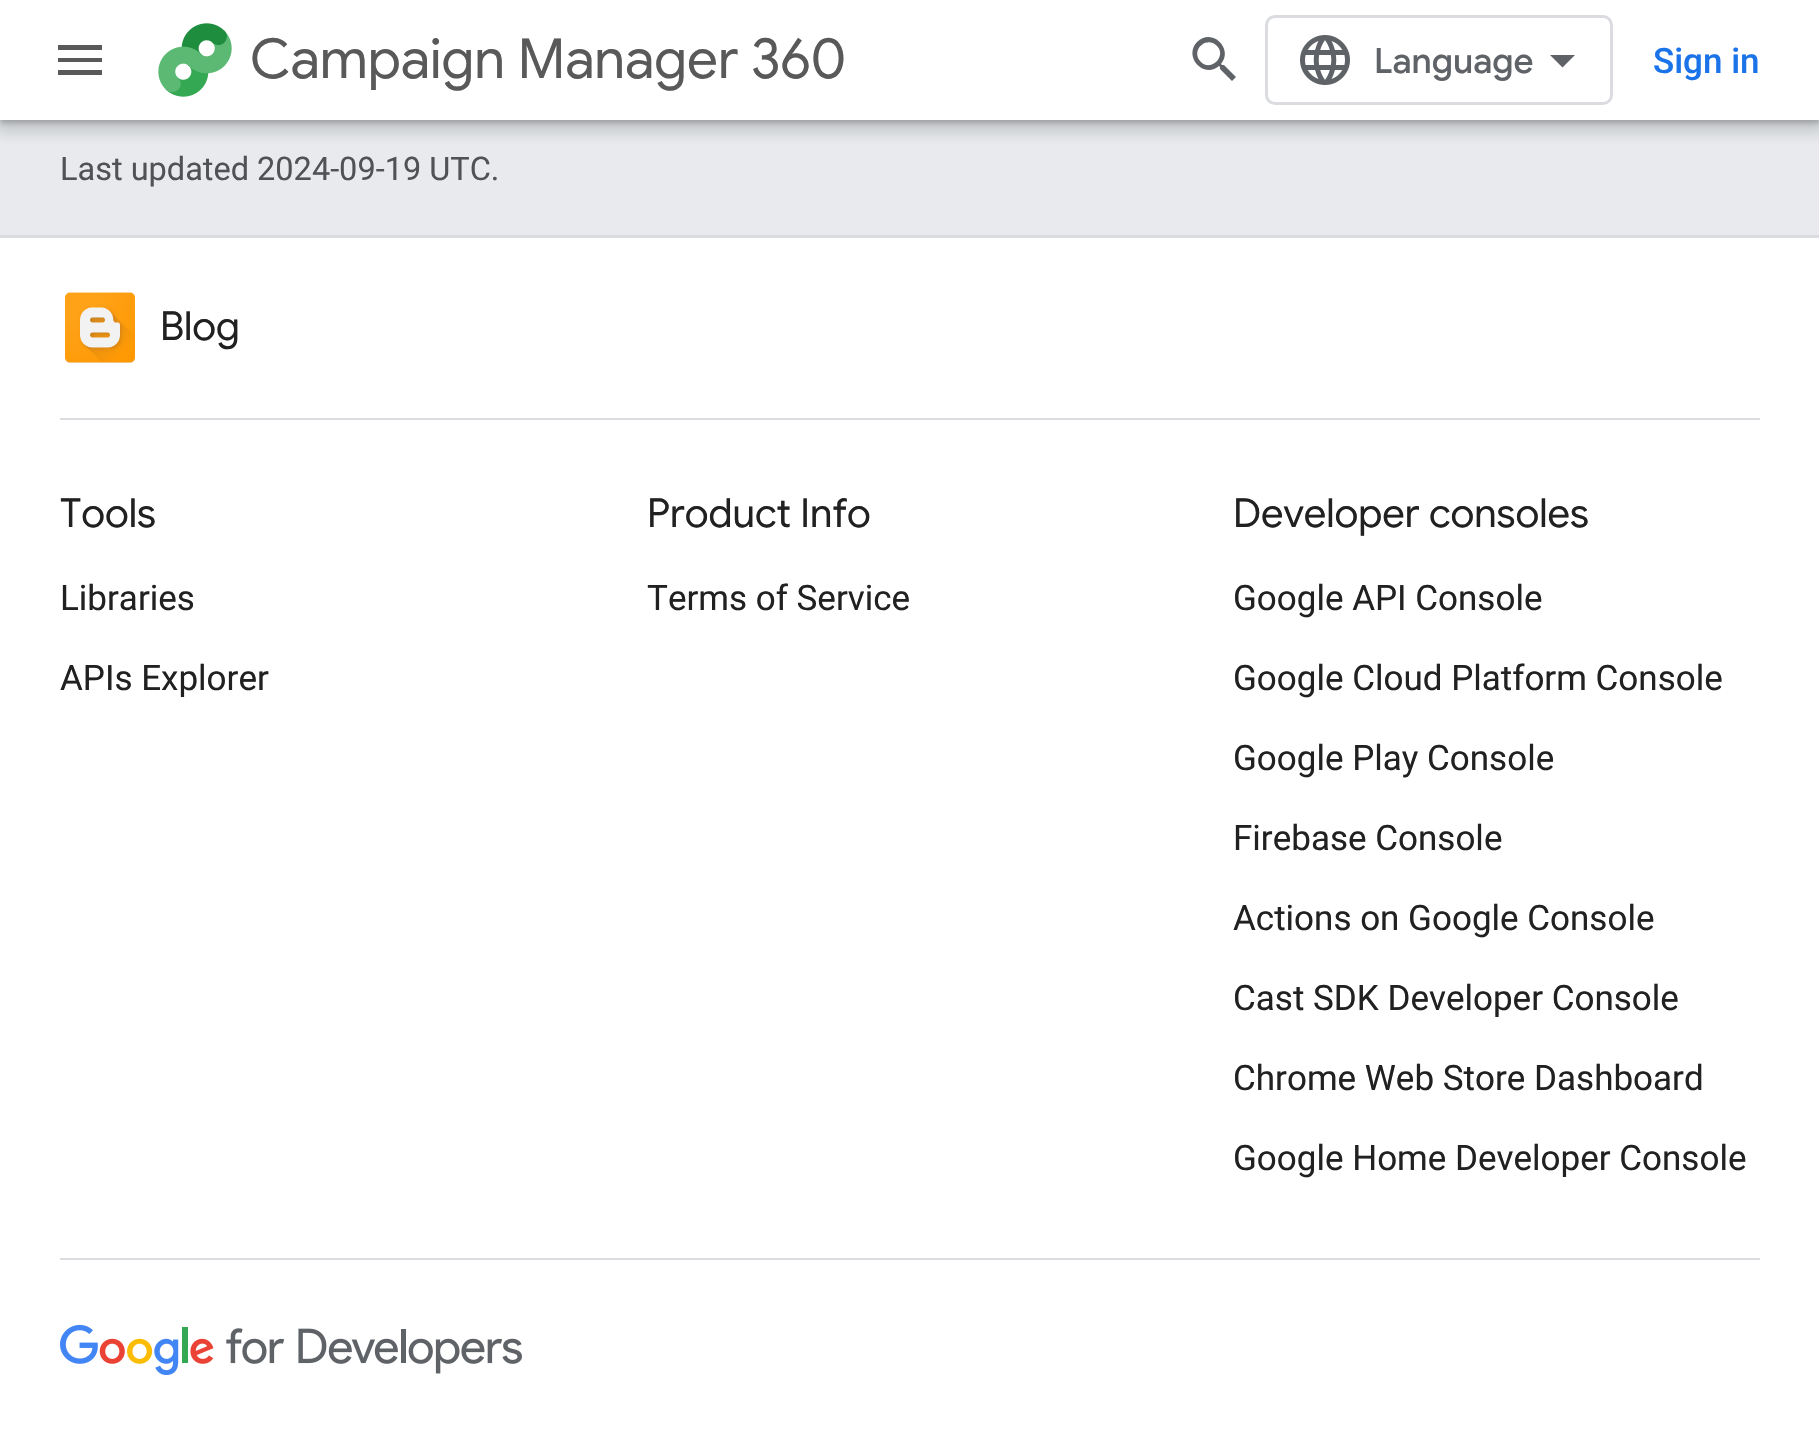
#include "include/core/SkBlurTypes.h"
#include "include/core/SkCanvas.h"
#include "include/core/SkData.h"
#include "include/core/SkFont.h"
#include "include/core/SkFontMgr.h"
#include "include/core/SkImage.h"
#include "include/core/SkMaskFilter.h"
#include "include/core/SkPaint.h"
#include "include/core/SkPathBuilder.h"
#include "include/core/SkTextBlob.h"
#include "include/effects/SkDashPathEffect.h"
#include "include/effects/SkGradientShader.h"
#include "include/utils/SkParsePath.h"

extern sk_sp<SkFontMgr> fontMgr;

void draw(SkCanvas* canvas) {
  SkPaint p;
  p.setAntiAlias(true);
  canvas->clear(SkColorSetRGB(232, 234, 237));
  p.setColor(SkColorSetARGB(38, 60, 64, 67));
  p.setMaskFilter(SkMaskFilter::MakeBlur(kNormal_SkBlurStyle, 7.5f));
  canvas->drawRect(SkRect::MakeLTRB(-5, 0, 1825, 130), p);
  p.setMaskFilter(nullptr);
  p.setColor(SkColorSetARGB(77, 60, 64, 67));
  p.setMaskFilter(SkMaskFilter::MakeBlur(kNormal_SkBlurStyle, 2.5f));
  canvas->drawRect(SkRect::MakeLTRB(0, 3, 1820, 123), p);
  p.setMaskFilter(nullptr);
  p.setColor(SkColorSetARGB(38, 60, 64, 67));
  p.setMaskFilter(SkMaskFilter::MakeBlur(kNormal_SkBlurStyle, 7.5f));
  canvas->drawRect(SkRect::MakeLTRB(-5, 120, 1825, 130), p);
  p.setMaskFilter(nullptr);
  p.setColor(SK_ColorWHITE);
  canvas->drawRect(SkRect::MakeLTRB(0, 0, 1819, 120), p);
  p.setColor(SkColorSetRGB(89, 89, 89));
  canvas->drawPath(SkPathBuilder().moveTo(58, 45).lineTo(102, 45).lineTo(102, 50).lineTo(58, 50).close().moveTo(58, 62).lineTo(58, 58).lineTo(102, 58).lineTo(102, 62).close().moveTo(58, 75).lineTo(58, 70).lineTo(102, 70).lineTo(102, 75).close().detach(), p);
  canvas->drawImageRect(SkImages::DeferredFromEncodedData(SkData::MakeFromFileName("images/1.png")), SkRect::MakeLTRB(158, 23, 232, 97), SkSamplingOptions());
  p.setColor(SkColorSetRGB(95, 99, 104));
  canvas->drawPath(SkPathBuilder().moveTo(1201, 62).cubicTo(1211, 72, 1227, 56, 1217, 46).cubicTo(1206, 35, 1190, 51, 1201, 62).close().moveTo(1224, 65).lineTo(1236, 77).lineTo(1232, 81).lineTo(1220, 69).lineTo(1220, 67).lineTo(1219, 66).cubicTo(1204, 79, 1183, 57, 1197, 42).cubicTo(1212, 27, 1234, 49, 1221, 64).lineTo(1222, 65).close().detach(), p);
  p.setStyle(SkPaint::kStroke_Style);
  p.setStrokeWidth(3);
  p.setColor(SkColorSetRGB(218, 220, 224));
  canvas->drawRoundRect(SkRect::MakeLTRB(1266.5f, 16.5f, 1611.5f, 103.5f), 8.5f, 8.5f, p);
  canvas->drawImageRect(SkImages::DeferredFromEncodedData(SkData::MakeFromFileName("images/2.png")), SkRect::MakeLTRB(1300, 35, 1350, 85), SkSamplingOptions());
  p.setStyle(SkPaint::kFill_Style);
  p.setColor(SkColorSetRGB(95, 99, 104));
  canvas->drawPath(SkPathBuilder().moveTo(1562.5f, 67.5f).lineTo(1550, 55).lineTo(1575, 55).close().detach(), p);
  p.setColor(SK_ColorWHITE);
  canvas->drawRect(SkRect::MakeLTRB(0, 238, 1819, 1431), p);
  p.setColor(SkColorSetRGB(218, 220, 224));
  canvas->drawRect(SkRect::MakeLTRB(0, 235, 1819, 238), p);
  canvas->drawRect(SkRect::MakeLTRB(60, 418, 1760, 420), p);
  canvas->drawImageRect(SkImages::DeferredFromEncodedData(SkData::MakeFromFileName("images/3.png")), SkRect::MakeLTRB(65, 292, 135, 363), SkSamplingOptions());
  canvas->drawRect(SkRect::MakeLTRB(60, 1258, 1760, 1260), p);
  canvas->drawImageRect(SkImages::DeferredFromEncodedData(SkData::MakeFromFileName("images/4.png")), SkRect::MakeLTRB(60, 1324, 522, 1376), SkSamplingOptions());
  SkFont font1(fontMgr->matchFamilyStyle("Google Sans", SkFontStyle::Normal()), 55);
  font1.setSubpixel(true);
  p.setColor(SkColorSetRGB(89, 89, 89));
  canvas->drawString("Campaign Manager 360", 250, 78, font1, p);
  SkFont font2(fontMgr->matchFamilyStyle("Google Sans", SkFontStyle(500, SkFontStyle::kNormal_Width, SkFontStyle::kUpright_Slant)), 35);
  font2.setSubpixel(true);
  p.setColor(SkColorSetRGB(95, 99, 104));
  canvas->drawString("Language", 1374, 73, font2, p);
  SkFont font3(fontMgr->matchFamilyStyle("Roboto", SkFontStyle(500, SkFontStyle::kNormal_Width, SkFontStyle::kUpright_Slant)), 35);
  font3.setSubpixel(true);
  p.setColor(SkColorSetRGB(26, 115, 232));
  canvas->drawString("Sign in", 1653, 73, font3, p);
  SkFont font4(fontMgr->matchFamilyStyle("Roboto", SkFontStyle::Normal()), 32.5f);
  font4.setSubpixel(true);
  p.setColor(SkColorSetRGB(81, 82, 83));
  canvas->drawString("Last updated 2024-09-19 UTC.", 60, 180, font4, p);
  SkFont font5(fontMgr->matchFamilyStyle("Google Sans", SkFontStyle::Normal()), 40);
  font5.setSubpixel(true);
  p.setColor(SkColorSetRGB(33, 33, 33));
  canvas->drawString("Blog", 160, 340, font5, p);
  canvas->drawString("Tools", 60, 527, font5, p);
  SkFont font6(fontMgr->matchFamilyStyle("Roboto", SkFontStyle::Normal()), 35);
  font6.setSubpixel(true);
  canvas->drawString("Libraries", 60, 610, font6, p);
  canvas->drawString("APIs Explorer", 60, 690, font6, p);
  canvas->drawString("Product Info", 647, 527, font5, p);
  canvas->drawString("Terms of Service", 647, 610, font6, p);
  canvas->drawString("Developer consoles", 1233, 527, font5, p);
  canvas->drawString("Google API Console", 1233, 610, font6, p);
  canvas->drawString("Google Cloud Platform Console", 1233, 690, font6, p);
  canvas->drawString("Google Play Console", 1233, 770, font6, p);
  canvas->drawString("Firebase Console", 1233, 850, font6, p);
  canvas->drawString("Actions on Google Console", 1233, 930, font6, p);
  canvas->drawString("Cast SDK Developer Console", 1233, 1010, font6, p);
  canvas->drawString("Chrome Web Store Dashboard", 1233, 1090, font6, p);
  canvas->drawString("Google Home Developer Console", 1233, 1170, font6, p);
}
